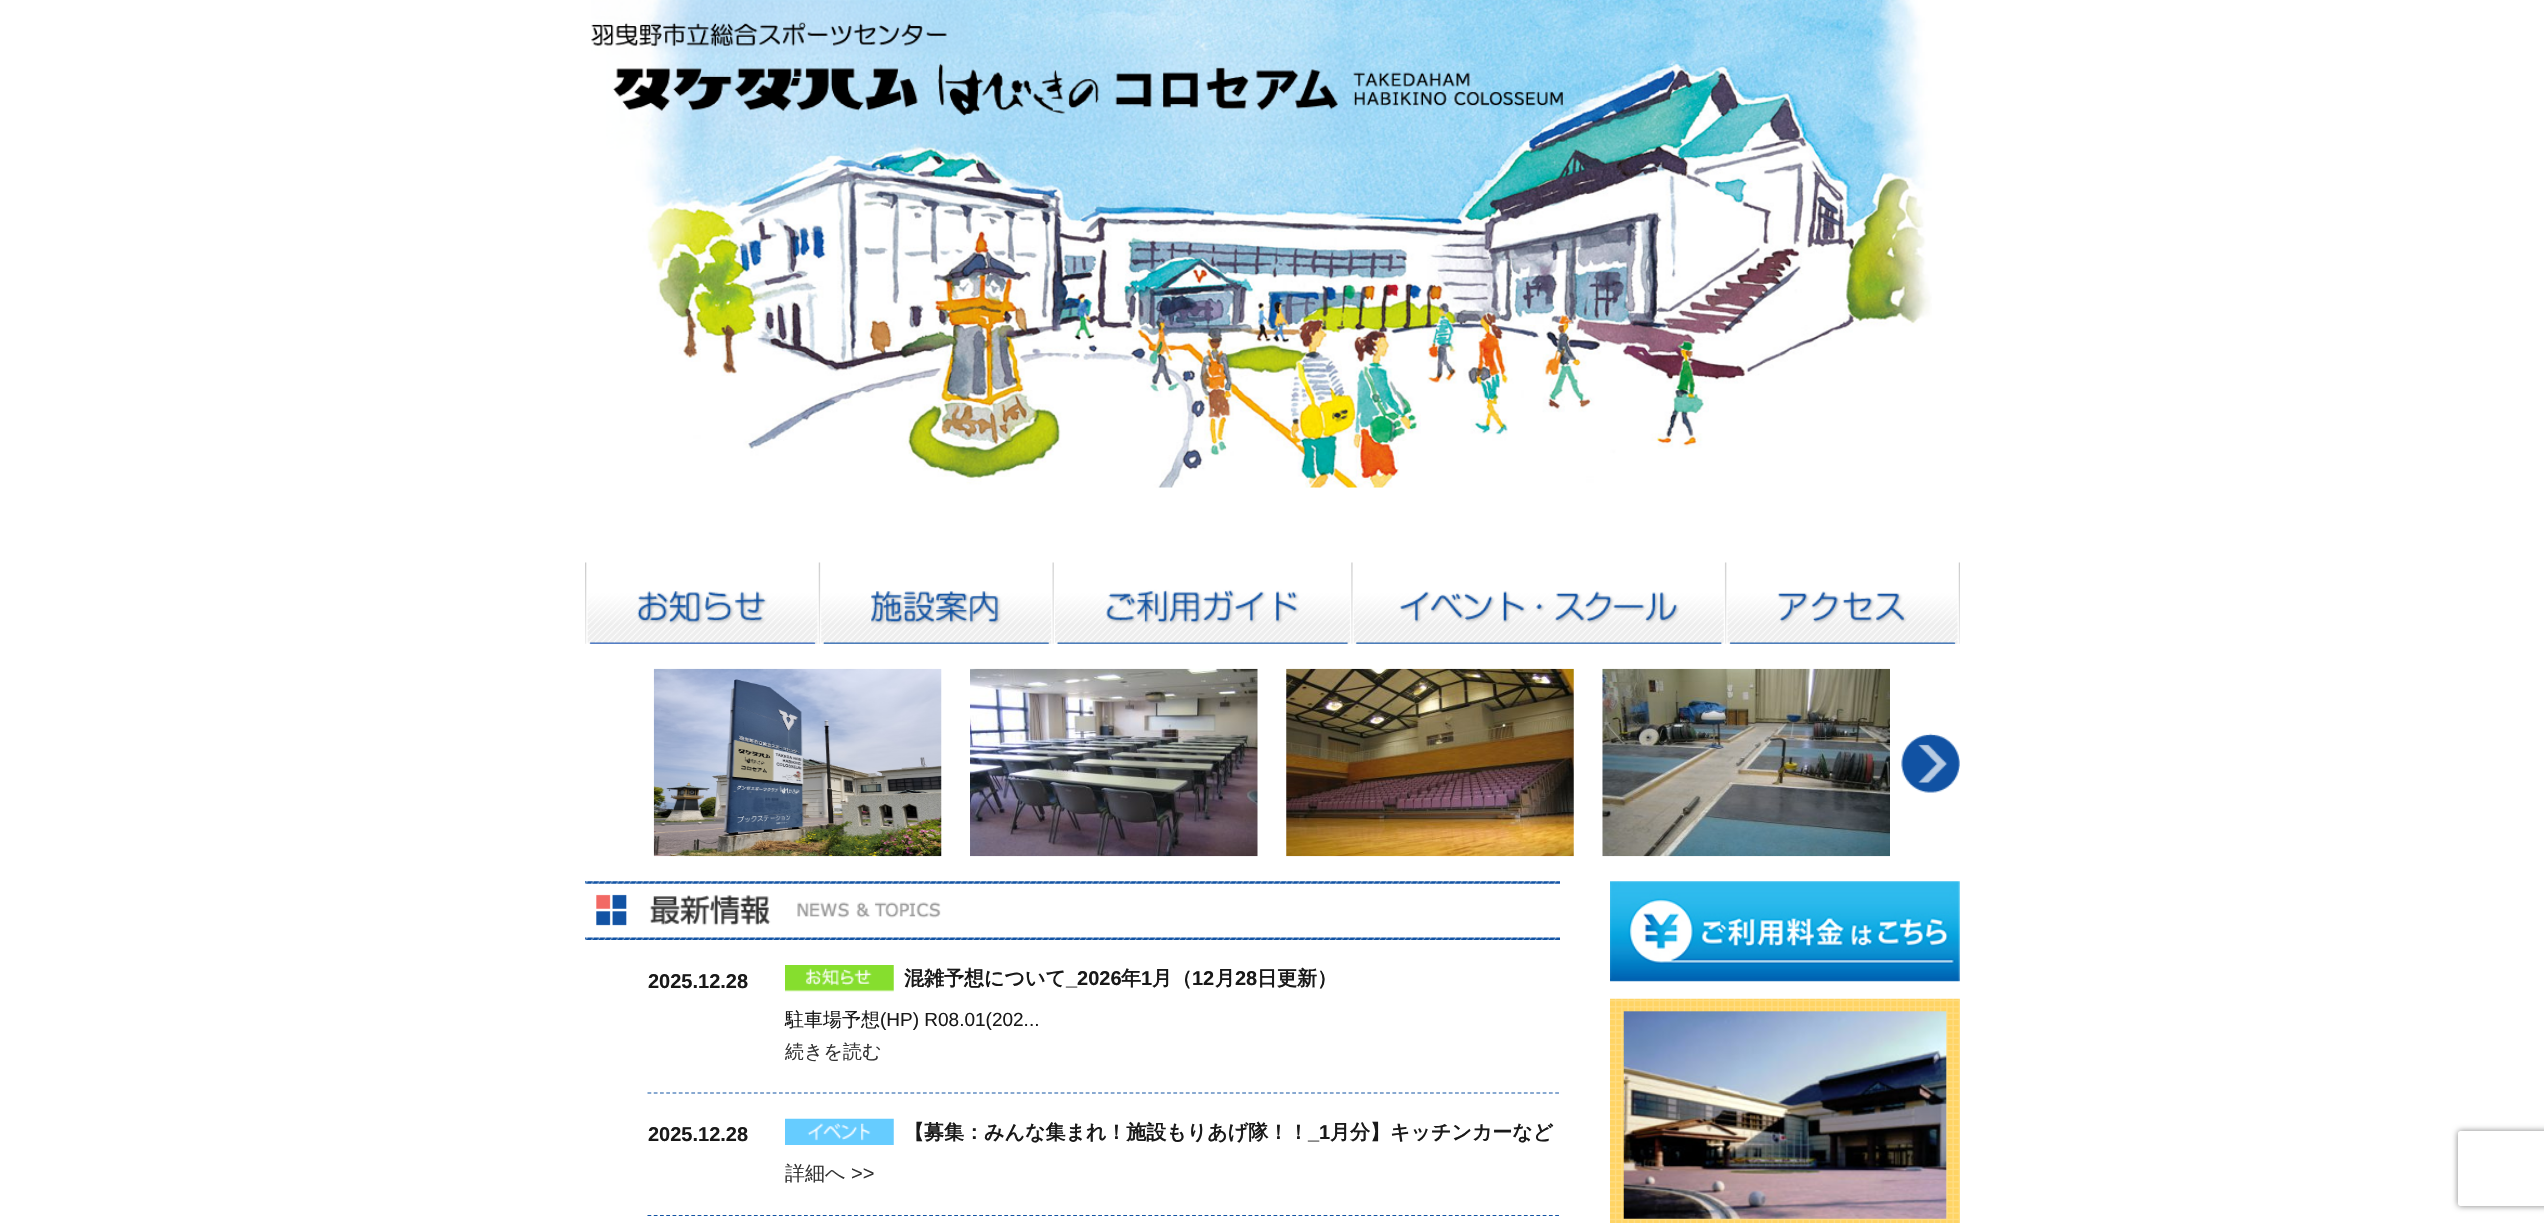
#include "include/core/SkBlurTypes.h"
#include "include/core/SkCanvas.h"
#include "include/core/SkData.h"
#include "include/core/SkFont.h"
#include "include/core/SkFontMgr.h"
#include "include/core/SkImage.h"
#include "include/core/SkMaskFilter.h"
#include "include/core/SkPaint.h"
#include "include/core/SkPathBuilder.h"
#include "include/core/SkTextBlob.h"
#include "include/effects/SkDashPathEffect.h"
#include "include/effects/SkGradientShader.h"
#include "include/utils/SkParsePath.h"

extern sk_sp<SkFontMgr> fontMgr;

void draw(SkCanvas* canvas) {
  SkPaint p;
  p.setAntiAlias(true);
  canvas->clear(SK_ColorWHITE);
  canvas->drawImageRect(SkImages::DeferredFromEncodedData(SkData::MakeFromFileName("images/1.png")), SkRect::MakeLTRB(591, 0, 1932, 488), SkSamplingOptions());
  canvas->drawImageRect(SkImages::DeferredFromEncodedData(SkData::MakeFromFileName("images/2.png")), SkRect::MakeLTRB(585, 562, 821, 644), SkSamplingOptions());
  canvas->drawImageRect(SkImages::DeferredFromEncodedData(SkData::MakeFromFileName("images/3.png")), SkRect::MakeLTRB(821, 562, 1054, 644), SkSamplingOptions());
  canvas->drawImageRect(SkImages::DeferredFromEncodedData(SkData::MakeFromFileName("images/4.png")), SkRect::MakeLTRB(1055, 562, 1353, 644), SkSamplingOptions());
  canvas->drawImageRect(SkImages::DeferredFromEncodedData(SkData::MakeFromFileName("images/5.png")), SkRect::MakeLTRB(1353, 562, 1727, 644), SkSamplingOptions());
  canvas->drawImageRect(SkImages::DeferredFromEncodedData(SkData::MakeFromFileName("images/6.png")), SkRect::MakeLTRB(1727, 562, 1960, 644), SkSamplingOptions());
  canvas->drawImageRect(SkImages::DeferredFromEncodedData(SkData::MakeFromFileName("images/7.png")), SkRect::MakeLTRB(653, 668, 942, 857), SkSamplingOptions());
  canvas->drawImageRect(SkImages::DeferredFromEncodedData(SkData::MakeFromFileName("images/8.png")), SkRect::MakeLTRB(970, 668, 1258, 857), SkSamplingOptions());
  canvas->drawImageRect(SkImages::DeferredFromEncodedData(SkData::MakeFromFileName("images/9.png")), SkRect::MakeLTRB(1286, 668, 1574, 857), SkSamplingOptions());
  canvas->drawImageRect(SkImages::DeferredFromEncodedData(SkData::MakeFromFileName("images/10.png")), SkRect::MakeLTRB(1602, 668, 1890, 857), SkSamplingOptions());
  canvas->drawImageRect(SkImages::DeferredFromEncodedData(SkData::MakeFromFileName("images/11.png")), SkRect::MakeLTRB(1901, 733, 1960, 793), SkSamplingOptions());
  canvas->drawImageRect(SkImages::DeferredFromEncodedData(SkData::MakeFromFileName("images/12.png")), SkRect::MakeLTRB(585, 881, 1560, 940), SkSamplingOptions());
  p.setStyle(SkPaint::kStroke_Style);
  p.setStrokeWidth(1.2f);
  p.setColor(SkColorSetRGB(18, 83, 164));
  p.setPathEffect(SkDashPathEffect::Make({{3.75f, 2.51f}}, 0));
  canvas->drawPath(SkPathBuilder().moveTo(647.5f, 1093).lineTo(1560, 1093).detach(), p);
  p.setPathEffect(nullptr);
  canvas->drawImageRect(SkImages::DeferredFromEncodedData(SkData::MakeFromFileName("images/13.png")), SkRect::MakeLTRB(785, 965, 894, 992), SkSamplingOptions());
  p.setPathEffect(SkDashPathEffect::Make({{3.75f, 2.51f}}, 0));
  canvas->drawPath(SkPathBuilder().moveTo(647.5f, 1215.5f).lineTo(1560, 1215.5f).detach(), p);
  p.setPathEffect(nullptr);
  canvas->drawImageRect(SkImages::DeferredFromEncodedData(SkData::MakeFromFileName("images/14.png")), SkRect::MakeLTRB(785, 1118, 894, 1145), SkSamplingOptions());
  canvas->drawImageRect(SkImages::DeferredFromEncodedData(SkData::MakeFromFileName("images/15.png")), SkRect::MakeLTRB(1610, 881, 1960, 982), SkSamplingOptions());
  canvas->drawImageRect(SkImages::DeferredFromEncodedData(SkData::MakeFromFileName("images/16.png")), SkRect::MakeLTRB(1610, 998, 1960, 1223), SkSamplingOptions());
  canvas->save();
  canvas->clipPath(SkPathBuilder(SkPathFillType::kEvenOdd).moveTo(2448, 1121).lineTo(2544, 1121).lineTo(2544, 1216).lineTo(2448, 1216).close().moveTo(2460.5f, 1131).lineTo(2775.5f, 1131).cubicTo(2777, 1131, 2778, 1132, 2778, 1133.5f).lineTo(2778, 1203.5f).cubicTo(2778, 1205, 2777, 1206, 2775.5f, 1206).lineTo(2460.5f, 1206).cubicTo(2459, 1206, 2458, 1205, 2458, 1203.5f).lineTo(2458, 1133.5f).cubicTo(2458, 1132, 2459, 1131, 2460.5f, 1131).close().detach(), true);
  p.setStyle(SkPaint::kFill_Style);
  p.setColor(SkColorSetRGB(128, 128, 128));
  p.setMaskFilter(SkMaskFilter::MakeBlur(kNormal_SkBlurStyle, 3));
  canvas->drawRoundRect(SkRect::MakeLTRB(2458, 1131, 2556, 1206), 2.5f, 2.5f, p);
  p.setMaskFilter(nullptr);
  canvas->restore();
  SkFont font1(fontMgr->matchFamilyStyle("Liberation Sans", SkFontStyle::Bold()), 20);
  font1.setSubpixel(true);
  p.setColor(SkColorSetRGB(25, 25, 25));
  canvas->drawString("2025.12.28", 648, 988, font1, p);
  SkFont font2(fontMgr->matchFamilyStyle("WenQuanYi Zen Hei", SkFontStyle::Bold()), 20);
  font2.setSubpixel(true);
  canvas->drawString("混雑予想について", 904, 985, font2, p);
  canvas->drawString("_2026", 1066, 985, font1, p);
  canvas->drawString("年", 1121, 985, font2, p);
  canvas->drawString("1", 1141, 985, font1, p);
  canvas->drawString("月（", 1152, 985, font2, p);
  canvas->drawString("12", 1192, 985, font1, p);
  canvas->drawString("月", 1215, 985, font2, p);
  canvas->drawString("28", 1235, 985, font1, p);
  canvas->drawString("日更新）", 1257, 985, font2, p);
  SkFont font3(fontMgr->matchFamilyStyle("WenQuanYi Zen Hei", SkFontStyle(500, SkFontStyle::kNormal_Width, SkFontStyle::kUpright_Slant)), 19);
  font3.setSubpixel(true);
  canvas->drawString("駐車場予想", 785, 1026, font3, p);
  SkFont font4(fontMgr->matchFamilyStyle("Liberation Sans", SkFontStyle::Normal()), 19);
  font4.setSubpixel(true);
  canvas->drawString("(HP) R08.01(202...", 880, 1026, font4, p);
  p.setColor(SkColorSetRGB(51, 51, 51));
  canvas->drawString("続きを読む", 785, 1058, font3, p);
  p.setColor(SkColorSetRGB(25, 25, 25));
  canvas->drawString("2025.12.28", 648, 1141, font1, p);
  canvas->drawString("【募集：みんな集まれ！施設もりあげ隊！！", 904, 1139, font2, p);
  canvas->drawString("_1", 1308, 1139, font1, p);
  canvas->drawString("月分】キッチンカーなど", 1330, 1139, font2, p);
  SkFont font5(fontMgr->matchFamilyStyle("WenQuanYi Zen Hei", SkFontStyle(500, SkFontStyle::kNormal_Width, SkFontStyle::kUpright_Slant)), 20);
  font5.setSubpixel(true);
  p.setColor(SkColorSetRGB(51, 51, 51));
  canvas->drawString("詳細へ", 785, 1180, font5, p);
  SkFont font6(fontMgr->matchFamilyStyle("Liberation Sans", SkFontStyle::Normal()), 20);
  font6.setSubpixel(true);
  canvas->drawString(">>", 851, 1180, font6, p);
}
